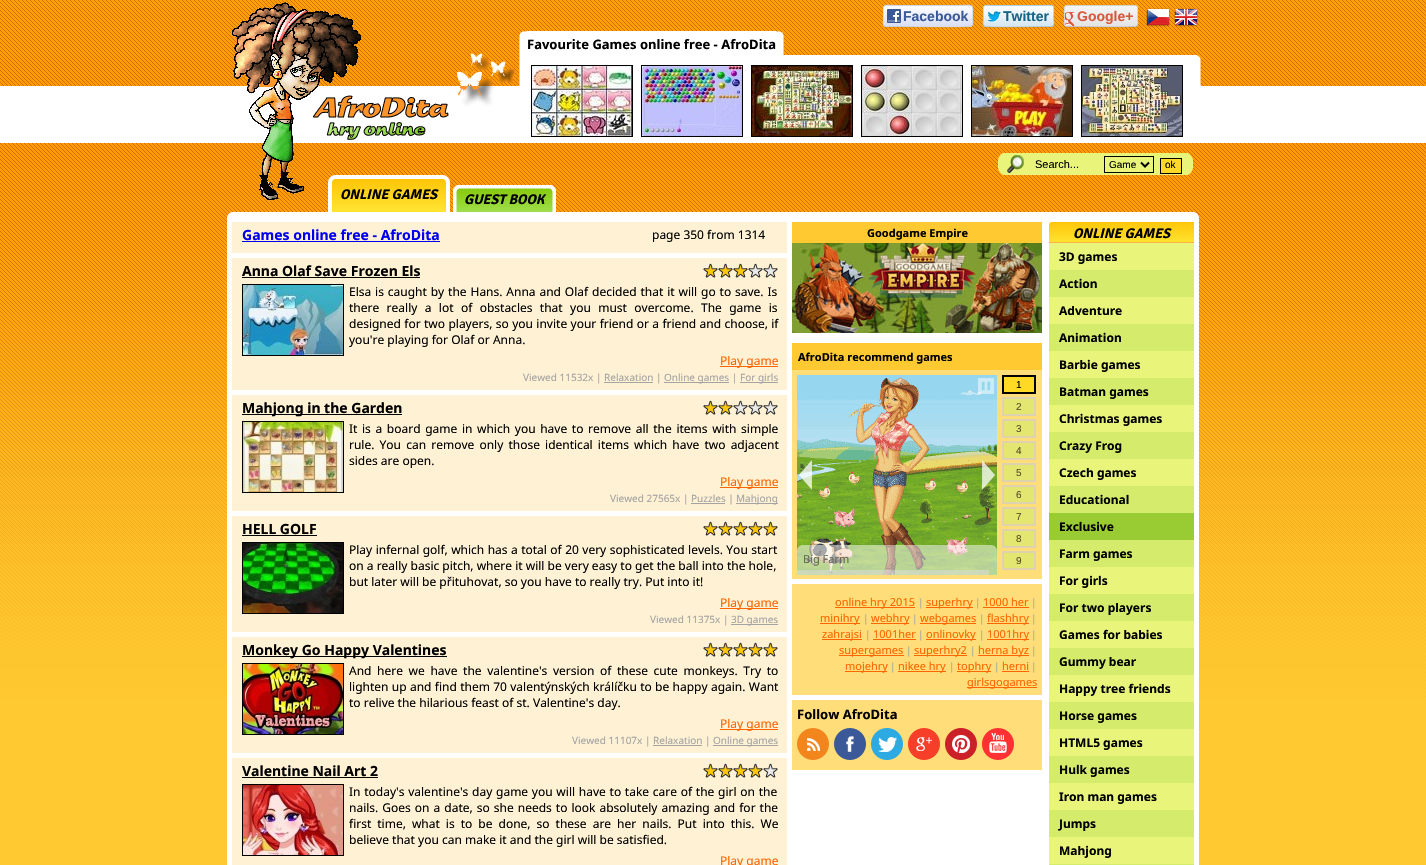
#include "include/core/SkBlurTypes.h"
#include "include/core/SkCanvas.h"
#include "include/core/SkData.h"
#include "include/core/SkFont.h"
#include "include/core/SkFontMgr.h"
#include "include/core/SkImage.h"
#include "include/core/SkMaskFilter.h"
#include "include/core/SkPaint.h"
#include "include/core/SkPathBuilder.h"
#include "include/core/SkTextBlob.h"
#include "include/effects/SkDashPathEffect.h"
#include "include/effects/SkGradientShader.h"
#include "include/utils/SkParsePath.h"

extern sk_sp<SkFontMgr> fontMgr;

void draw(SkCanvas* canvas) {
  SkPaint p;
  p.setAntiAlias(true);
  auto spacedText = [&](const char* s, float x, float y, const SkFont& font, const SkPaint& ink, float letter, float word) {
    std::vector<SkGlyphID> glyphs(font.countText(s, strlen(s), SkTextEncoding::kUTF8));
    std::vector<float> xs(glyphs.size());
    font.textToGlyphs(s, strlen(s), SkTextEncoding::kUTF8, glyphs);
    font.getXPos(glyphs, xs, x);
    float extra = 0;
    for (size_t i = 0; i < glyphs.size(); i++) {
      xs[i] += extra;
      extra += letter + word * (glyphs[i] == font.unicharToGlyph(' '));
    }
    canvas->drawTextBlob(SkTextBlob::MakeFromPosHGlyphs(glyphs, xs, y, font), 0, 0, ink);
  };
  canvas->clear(SkColorSetRGB(255, 202, 49));
  canvas->drawImageRect(SkImages::DeferredFromEncodedData(SkData::MakeFromFileName("images/1.png")), SkRect::MakeLTRB(0, 0, 1426, 699), SkSamplingOptions());
  canvas->drawImageRect(SkImages::DeferredFromEncodedData(SkData::MakeFromFileName("images/2.png")), SkRect::MakeLTRB(231, 2, 449, 201), SkSamplingOptions());
  p.setColor(SkColorSetARGB(13, 0, 0, 0));
  p.setMaskFilter(SkMaskFilter::MakeBlur(kNormal_SkBlurStyle, 0.5f));
  canvas->drawRoundRect(SkRect::MakeLTRB(883, 6, 973, 28), 3, 3, p);
  p.setMaskFilter(nullptr);
  canvas->save();
  canvas->clipPath(SkPathBuilder().moveTo(886, 5).lineTo(970, 5).cubicTo(971.5f, 5, 973, 6.5f, 973, 8).lineTo(973, 24).cubicTo(973, 25.5f, 971.5f, 27, 970, 27).lineTo(886, 27).cubicTo(884.5f, 27, 883, 25.5f, 883, 24).lineTo(883, 8).cubicTo(883, 6.5f, 884.5f, 5, 886, 5).close().detach(), true);
  {
    const SkColor colors[] = {SK_ColorWHITE, SkColorSetRGB(216, 222, 244)};
    const float stops[] = {0, 1};
    const SkPoint ends[] = {{928, -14}, {928, 6}};
    p.setShader(SkGradientShader::MakeLinear(ends, colors, stops, 2, SkTileMode::kClamp));
    p.setAlpha(255);
  }
  canvas->drawRect(SkRect::MakeLTRB(883, 5, 973, 6), p);
  {
    const SkColor colors[] = {SK_ColorWHITE, SkColorSetRGB(216, 222, 244)};
    const float stops[] = {0, 1};
    const SkPoint ends[] = {{928, 6}, {928, 26}};
    p.setShader(SkGradientShader::MakeLinear(ends, colors, stops, 2, SkTileMode::kClamp));
    p.setAlpha(255);
  }
  canvas->drawRect(SkRect::MakeLTRB(883, 6, 973, 26), p);
  {
    const SkColor colors[] = {SK_ColorWHITE, SkColorSetRGB(216, 222, 244)};
    const float stops[] = {0, 1};
    const SkPoint ends[] = {{928, 26}, {928, 46}};
    p.setShader(SkGradientShader::MakeLinear(ends, colors, stops, 2, SkTileMode::kClamp));
    p.setAlpha(255);
  }
  canvas->drawRect(SkRect::MakeLTRB(883, 26, 973, 27), p);
  canvas->restore();
  p.setStyle(SkPaint::kStroke_Style);
  p.setStrokeWidth(1);
  p.setShader(nullptr);
  p.setColor(SkColorSetARGB(204, 189, 194, 203));
  canvas->drawPath(SkPathBuilder().moveTo(972, 26).lineTo(971.5f, 26).cubicTo(969.5f, 27.5f, 907.5f, 26.5f, 900, 26.5f).lineTo(886, 26.5f).lineTo(884, 26).detach(), p);
  p.setColor(SkColorSetARGB(204, 202, 212, 231));
  canvas->drawPath(SkPathBuilder().moveTo(884, 26).cubicTo(882.5f, 24, 883.5f, 20.5f, 883.5f, 18.5f).cubicTo(883.5f, 2, 881, 5.5f, 900, 5.5f).lineTo(956, 5.5f).cubicTo(975, 5.5f, 972.5f, 2, 972.5f, 18.5f).cubicTo(972.5f, 20.5f, 973.5f, 24, 972, 26).detach(), p);
  canvas->drawImageRect(SkImages::DeferredFromEncodedData(SkData::MakeFromFileName("images/3.png")), SkRect::MakeLTRB(887, 9, 901, 23), SkSamplingOptions());
  p.setStyle(SkPaint::kFill_Style);
  p.setColor(SkColorSetARGB(13, 0, 0, 0));
  p.setMaskFilter(SkMaskFilter::MakeBlur(kNormal_SkBlurStyle, 0.5f));
  canvas->drawRoundRect(SkRect::MakeLTRB(983, 6, 1054, 28), 3, 3, p);
  p.setMaskFilter(nullptr);
  canvas->save();
  canvas->clipPath(SkPathBuilder().moveTo(986, 5).lineTo(1051, 5).cubicTo(1052.5f, 5, 1054, 6.5f, 1054, 8).lineTo(1054, 24).cubicTo(1054, 25.5f, 1052.5f, 27, 1051, 27).lineTo(986, 27).cubicTo(984.5f, 27, 983, 25.5f, 983, 24).lineTo(983, 8).cubicTo(983, 6.5f, 984.5f, 5, 986, 5).close().detach(), true);
  {
    const SkColor colors[] = {SK_ColorWHITE, SkColorSetRGB(213, 230, 239)};
    const float stops[] = {0, 1};
    const SkPoint ends[] = {{1019, -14}, {1019, 6}};
    p.setShader(SkGradientShader::MakeLinear(ends, colors, stops, 2, SkTileMode::kClamp));
    p.setAlpha(255);
  }
  canvas->drawRect(SkRect::MakeLTRB(983, 5, 1054, 6), p);
  {
    const SkColor colors[] = {SK_ColorWHITE, SkColorSetRGB(213, 230, 239)};
    const float stops[] = {0, 1};
    const SkPoint ends[] = {{1019, 6}, {1019, 26}};
    p.setShader(SkGradientShader::MakeLinear(ends, colors, stops, 2, SkTileMode::kClamp));
    p.setAlpha(255);
  }
  canvas->drawRect(SkRect::MakeLTRB(983, 6, 1054, 26), p);
  {
    const SkColor colors[] = {SK_ColorWHITE, SkColorSetRGB(213, 230, 239)};
    const float stops[] = {0, 1};
    const SkPoint ends[] = {{1019, 26}, {1019, 46}};
    p.setShader(SkGradientShader::MakeLinear(ends, colors, stops, 2, SkTileMode::kClamp));
    p.setAlpha(255);
  }
  canvas->drawRect(SkRect::MakeLTRB(983, 26, 1054, 27), p);
  canvas->restore();
  p.setStyle(SkPaint::kStroke_Style);
  p.setShader(nullptr);
  p.setColor(SkColorSetARGB(204, 158, 186, 204));
  canvas->drawPath(SkPathBuilder().moveTo(1053, 26).lineTo(1051, 26.5f).lineTo(1040, 26.5f).cubicTo(1034, 26.5f, 986.5f, 27.5f, 984.5f, 26).lineTo(984, 26).detach(), p);
  p.setColor(SkColorSetARGB(204, 164, 204, 229));
  canvas->drawPath(SkPathBuilder().moveTo(984, 26).cubicTo(982.5f, 24, 983.5f, 20.5f, 983.5f, 18.5f).cubicTo(983.5f, 3, 981, 5.5f, 997, 5.5f).lineTo(1040, 5.5f).cubicTo(1056, 5.5f, 1053.5f, 3, 1053.5f, 18.5f).cubicTo(1053.5f, 20.5f, 1054.5f, 24, 1053, 26).detach(), p);
  canvas->drawImageRect(SkImages::DeferredFromEncodedData(SkData::MakeFromFileName("images/4.png")), SkRect::MakeLTRB(987, 11, 1001, 22), SkSamplingOptions());
  p.setStyle(SkPaint::kFill_Style);
  p.setColor(SkColorSetARGB(13, 0, 0, 0));
  p.setMaskFilter(SkMaskFilter::MakeBlur(kNormal_SkBlurStyle, 0.5f));
  canvas->drawRoundRect(SkRect::MakeLTRB(1064, 6, 1138, 28), 3, 3, p);
  p.setMaskFilter(nullptr);
  canvas->save();
  canvas->clipPath(SkPathBuilder().moveTo(1067, 5).lineTo(1135, 5).cubicTo(1136.5f, 5, 1138, 6.5f, 1138, 8).lineTo(1138, 24).cubicTo(1138, 25.5f, 1136.5f, 27, 1135, 27).lineTo(1067, 27).cubicTo(1065.5f, 27, 1064, 25.5f, 1064, 24).lineTo(1064, 8).cubicTo(1064, 6.5f, 1065.5f, 5, 1067, 5).close().detach(), true);
  {
    const SkColor colors[] = {SkColorSetRGB(245, 245, 245), SkColorSetRGB(228, 228, 228)};
    const float stops[] = {0, 1};
    const SkPoint ends[] = {{1101, -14}, {1101, 6}};
    p.setShader(SkGradientShader::MakeLinear(ends, colors, stops, 2, SkTileMode::kClamp));
    p.setAlpha(255);
  }
  canvas->drawRect(SkRect::MakeLTRB(1064, 5, 1138, 6), p);
  {
    const SkColor colors[] = {SkColorSetRGB(245, 245, 245), SkColorSetRGB(228, 228, 228)};
    const float stops[] = {0, 1};
    const SkPoint ends[] = {{1101, 6}, {1101, 26}};
    p.setShader(SkGradientShader::MakeLinear(ends, colors, stops, 2, SkTileMode::kClamp));
    p.setAlpha(255);
  }
  canvas->drawRect(SkRect::MakeLTRB(1064, 6, 1138, 26), p);
  {
    const SkColor colors[] = {SkColorSetRGB(245, 245, 245), SkColorSetRGB(228, 228, 228)};
    const float stops[] = {0, 1};
    const SkPoint ends[] = {{1101, 26}, {1101, 46}};
    p.setShader(SkGradientShader::MakeLinear(ends, colors, stops, 2, SkTileMode::kClamp));
    p.setAlpha(255);
  }
  canvas->drawRect(SkRect::MakeLTRB(1064, 26, 1138, 27), p);
  canvas->restore();
  p.setStyle(SkPaint::kStroke_Style);
  p.setShader(nullptr);
  p.setColor(SkColorSetARGB(204, 179, 179, 179));
  canvas->drawPath(SkPathBuilder().moveTo(1137, 26).lineTo(1136.5f, 26).cubicTo(1134.5f, 27.5f, 1085, 26.5f, 1078.5f, 26.5f).lineTo(1067, 26.5f).lineTo(1065, 26).detach(), p);
  p.setColor(SkColorSetARGB(204, 204, 204, 204));
  canvas->drawPath(SkPathBuilder().moveTo(1065, 26).cubicTo(1063.5f, 24, 1064.5f, 20.5f, 1064.5f, 18.5f).cubicTo(1064.5f, 3, 1062, 5.5f, 1078.5f, 5.5f).lineTo(1123.5f, 5.5f).cubicTo(1140, 5.5f, 1137.5f, 3, 1137.5f, 18.5f).cubicTo(1137.5f, 20.5f, 1138.5f, 24, 1137, 26).detach(), p);
  canvas->drawImageRect(SkImages::DeferredFromEncodedData(SkData::MakeFromFileName("images/5.png")), SkRect::MakeLTRB(1065, 12, 1075, 26), SkSamplingOptions());
  canvas->drawImageRect(SkImages::DeferredFromEncodedData(SkData::MakeFromFileName("images/6.png")), SkRect::MakeLTRB(1146, 8, 1170, 27), SkSamplingOptions());
  canvas->drawImageRect(SkImages::DeferredFromEncodedData(SkData::MakeFromFileName("images/7.png")), SkRect::MakeLTRB(1174, 8, 1198, 27), SkSamplingOptions());
  canvas->drawImageRect(SkImages::DeferredFromEncodedData(SkData::MakeFromFileName("images/8.png")), SkRect::MakeLTRB(457, 31, 527, 108), SkSamplingOptions());
  p.setStyle(SkPaint::kFill_Style);
  p.setColor(SK_ColorWHITE);
  canvas->drawRect(SkRect::MakeLTRB(527, 55, 1193, 86), p);
  canvas->drawRect(SkRect::MakeLTRB(527, 31, 776, 55), p);
  canvas->drawImageRect(SkImages::DeferredFromEncodedData(SkData::MakeFromFileName("images/9.png")), SkRect::MakeLTRB(776, 31, 784, 55), SkSamplingOptions());
  p.setStyle(SkPaint::kStroke_Style);
  p.setColor(SK_ColorBLACK);
  canvas->drawRect(SkRect::MakeLTRB(531.5f, 65.5f, 632.5f, 136.5f), p);
  canvas->drawImageRect(SkImages::DeferredFromEncodedData(SkData::MakeFromFileName("images/10.png")), SkRect::MakeLTRB(532, 66, 632, 136), SkSamplingOptions());
  canvas->drawRect(SkRect::MakeLTRB(641.5f, 65.5f, 742.5f, 136.5f), p);
  canvas->drawImageRect(SkImages::DeferredFromEncodedData(SkData::MakeFromFileName("images/11.png")), SkRect::MakeLTRB(642, 66, 742, 136), SkSamplingOptions());
  canvas->drawRect(SkRect::MakeLTRB(751.5f, 65.5f, 852.5f, 136.5f), p);
  canvas->drawImageRect(SkImages::DeferredFromEncodedData(SkData::MakeFromFileName("images/12.png")), SkRect::MakeLTRB(752, 66, 852, 136), SkSamplingOptions());
  canvas->drawRect(SkRect::MakeLTRB(861.5f, 65.5f, 962.5f, 136.5f), p);
  canvas->drawImageRect(SkImages::DeferredFromEncodedData(SkData::MakeFromFileName("images/13.png")), SkRect::MakeLTRB(862, 66, 962, 136), SkSamplingOptions());
  canvas->drawRect(SkRect::MakeLTRB(971.5f, 65.5f, 1072.5f, 136.5f), p);
  canvas->drawImageRect(SkImages::DeferredFromEncodedData(SkData::MakeFromFileName("images/14.png")), SkRect::MakeLTRB(972, 66, 1072, 136), SkSamplingOptions());
  canvas->drawRect(SkRect::MakeLTRB(1081.5f, 65.5f, 1182.5f, 136.5f), p);
  canvas->drawImageRect(SkImages::DeferredFromEncodedData(SkData::MakeFromFileName("images/15.png")), SkRect::MakeLTRB(1082, 66, 1182, 136), SkSamplingOptions());
  canvas->drawImageRect(SkImages::DeferredFromEncodedData(SkData::MakeFromFileName("images/16.png")), SkRect::MakeLTRB(1193, 55, 1201, 86), SkSamplingOptions());
  canvas->drawImageRect(SkImages::DeferredFromEncodedData(SkData::MakeFromFileName("images/17.png")), SkRect::MakeLTRB(998, 153, 1026, 175), SkSamplingOptions());
  p.setStyle(SkPaint::kFill_Style);
  p.setColor(SkColorSetRGB(233, 244, 123));
  canvas->drawRect(SkRect::MakeLTRB(1026, 153, 1188, 175), p);
  p.setStyle(SkPaint::kStroke_Style);
  p.setColor(SK_ColorBLACK);
  canvas->drawRect(SkRect::MakeLTRB(1104.5f, 156.5f, 1153.5f, 172.5f), p);
  p.setStrokeWidth(2);
  canvas->drawPath(SkPathBuilder().moveTo(1141, 162.5f).lineTo(1145, 166.5f).lineTo(1149, 162.5f).detach(), p);
  p.setStyle(SkPaint::kFill_Style);
  p.setColor(SkColorSetRGB(255, 218, 36));
  canvas->drawRect(SkRect::MakeLTRB(1160.5f, 158.5f, 1181.5f, 173.5f), p);
  p.setStyle(SkPaint::kStroke_Style);
  p.setStrokeWidth(1);
  p.setColor(SK_ColorBLACK);
  canvas->drawRect(SkRect::MakeLTRB(1160.5f, 158.5f, 1181.5f, 173.5f), p);
  canvas->drawImageRect(SkImages::DeferredFromEncodedData(SkData::MakeFromFileName("images/18.png")), SkRect::MakeLTRB(1188, 153, 1193, 175), SkSamplingOptions());
  canvas->drawImageRect(SkImages::DeferredFromEncodedData(SkData::MakeFromFileName("images/19.png")), SkRect::MakeLTRB(328, 175, 335, 212), SkSamplingOptions());
  canvas->drawImageRect(SkImages::DeferredFromEncodedData(SkData::MakeFromFileName("images/20.png")), SkRect::MakeLTRB(335, 175, 443, 212), SkSamplingOptions());
  canvas->drawImageRect(SkImages::DeferredFromEncodedData(SkData::MakeFromFileName("images/21.png")), SkRect::MakeLTRB(443, 175, 450, 212), SkSamplingOptions());
  canvas->drawImageRect(SkImages::DeferredFromEncodedData(SkData::MakeFromFileName("images/22.png")), SkRect::MakeLTRB(453, 185, 459, 212), SkSamplingOptions());
  canvas->drawImageRect(SkImages::DeferredFromEncodedData(SkData::MakeFromFileName("images/23.png")), SkRect::MakeLTRB(459, 185, 550, 212), SkSamplingOptions());
  canvas->drawImageRect(SkImages::DeferredFromEncodedData(SkData::MakeFromFileName("images/24.png")), SkRect::MakeLTRB(550, 185, 556, 212), SkSamplingOptions());
  canvas->drawImageRect(SkImages::DeferredFromEncodedData(SkData::MakeFromFileName("images/25.png")), SkRect::MakeLTRB(227, 212, 1199, 217), SkSamplingOptions());
  p.setStyle(SkPaint::kFill_Style);
  p.setColor(SK_ColorWHITE);
  canvas->drawRect(SkRect::MakeLTRB(227, 217, 1199, 865), p);
  p.setColor(SkColorSetRGB(255, 241, 212));
  canvas->drawRect(SkRect::MakeLTRB(232, 222, 787, 253), p);
  p.setColor(SkColorSetRGB(0, 0, 238));
  canvas->drawRect(SkRect::MakeLTRB(242, 241, 440, 242), p);
  p.setColor(SkColorSetRGB(255, 241, 212));
  canvas->drawRect(SkRect::MakeLTRB(232, 258, 787, 390), p);
  p.setColor(SK_ColorBLACK);
  canvas->drawRect(SkRect::MakeLTRB(242, 277, 420, 278), p);
  canvas->drawImageRect(SkImages::DeferredFromEncodedData(SkData::MakeFromFileName("images/26.png")), SkRect::MakeLTRB(703, 263, 778, 278), SkSamplingOptions());
  canvas->drawImageRect(SkImages::DeferredFromEncodedData(SkData::MakeFromFileName("images/27.png")), SkRect::MakeLTRB(704, 265, 747, 277), SkSamplingOptions());
  p.setStyle(SkPaint::kStroke_Style);
  canvas->drawRect(SkRect::MakeLTRB(242.5f, 284.5f, 343.5f, 355.5f), p);
  canvas->drawImageRect(SkImages::DeferredFromEncodedData(SkData::MakeFromFileName("images/28.png")), SkRect::MakeLTRB(243, 285, 343, 355), SkSamplingOptions());
  p.setStyle(SkPaint::kFill_Style);
  p.setColor(SkColorSetRGB(255, 102, 0));
  canvas->drawRect(SkRect::MakeLTRB(720, 366, 778, 367), p);
  p.setColor(SkColorSetRGB(164, 164, 164));
  canvas->drawRect(SkRect::MakeLTRB(664, 382, 729, 383), p);
  canvas->drawRect(SkRect::MakeLTRB(740, 382, 778, 383), p);
  canvas->drawRect(SkRect::MakeLTRB(604, 382, 653, 383), p);
  p.setColor(SkColorSetRGB(255, 241, 212));
  canvas->drawRect(SkRect::MakeLTRB(232, 395, 787, 511), p);
  p.setColor(SK_ColorBLACK);
  canvas->drawRect(SkRect::MakeLTRB(242, 414, 402, 415), p);
  canvas->drawImageRect(SkImages::DeferredFromEncodedData(SkData::MakeFromFileName("images/26.png")), SkRect::MakeLTRB(703, 400, 778, 415), SkSamplingOptions());
  canvas->drawImageRect(SkImages::DeferredFromEncodedData(SkData::MakeFromFileName("images/29.png")), SkRect::MakeLTRB(704, 402, 732, 414), SkSamplingOptions());
  p.setStyle(SkPaint::kStroke_Style);
  canvas->drawRect(SkRect::MakeLTRB(242.5f, 421.5f, 343.5f, 492.5f), p);
  canvas->drawImageRect(SkImages::DeferredFromEncodedData(SkData::MakeFromFileName("images/30.png")), SkRect::MakeLTRB(243, 422, 343, 492), SkSamplingOptions());
  p.setStyle(SkPaint::kFill_Style);
  p.setColor(SkColorSetRGB(255, 102, 0));
  canvas->drawRect(SkRect::MakeLTRB(720, 487, 778, 488), p);
  p.setColor(SkColorSetRGB(164, 164, 164));
  canvas->drawRect(SkRect::MakeLTRB(736, 503, 778, 504), p);
  canvas->drawRect(SkRect::MakeLTRB(691, 503, 725, 504), p);
  p.setColor(SkColorSetRGB(255, 241, 212));
  canvas->drawRect(SkRect::MakeLTRB(232, 516, 787, 632), p);
  p.setColor(SK_ColorBLACK);
  canvas->drawRect(SkRect::MakeLTRB(242, 535, 317, 536), p);
  canvas->drawImageRect(SkImages::DeferredFromEncodedData(SkData::MakeFromFileName("images/26.png")), SkRect::MakeLTRB(703, 521, 778, 536), SkSamplingOptions());
  canvas->drawImageRect(SkImages::DeferredFromEncodedData(SkData::MakeFromFileName("images/31.png")), SkRect::MakeLTRB(704, 523, 777, 535), SkSamplingOptions());
  p.setStyle(SkPaint::kStroke_Style);
  canvas->drawRect(SkRect::MakeLTRB(242.5f, 542.5f, 343.5f, 613.5f), p);
  canvas->drawImageRect(SkImages::DeferredFromEncodedData(SkData::MakeFromFileName("images/32.png")), SkRect::MakeLTRB(243, 543, 343, 613), SkSamplingOptions());
  p.setStyle(SkPaint::kFill_Style);
  p.setColor(SkColorSetRGB(255, 102, 0));
  canvas->drawRect(SkRect::MakeLTRB(720, 608, 778, 609), p);
  p.setColor(SkColorSetRGB(164, 164, 164));
  canvas->drawRect(SkRect::MakeLTRB(731, 624, 778, 625), p);
  p.setColor(SkColorSetRGB(255, 241, 212));
  canvas->drawRect(SkRect::MakeLTRB(232, 637, 787, 753), p);
  p.setColor(SK_ColorBLACK);
  canvas->drawRect(SkRect::MakeLTRB(242, 656, 447, 657), p);
  canvas->drawImageRect(SkImages::DeferredFromEncodedData(SkData::MakeFromFileName("images/26.png")), SkRect::MakeLTRB(703, 642, 778, 657), SkSamplingOptions());
  canvas->drawImageRect(SkImages::DeferredFromEncodedData(SkData::MakeFromFileName("images/31.png")), SkRect::MakeLTRB(704, 644, 777, 656), SkSamplingOptions());
  p.setStyle(SkPaint::kStroke_Style);
  canvas->drawRect(SkRect::MakeLTRB(242.5f, 663.5f, 343.5f, 734.5f), p);
  canvas->drawImageRect(SkImages::DeferredFromEncodedData(SkData::MakeFromFileName("images/33.png")), SkRect::MakeLTRB(243, 664, 343, 734), SkSamplingOptions());
  p.setStyle(SkPaint::kFill_Style);
  p.setColor(SkColorSetRGB(255, 102, 0));
  canvas->drawRect(SkRect::MakeLTRB(720, 729, 778, 730), p);
  p.setColor(SkColorSetRGB(164, 164, 164));
  canvas->drawRect(SkRect::MakeLTRB(713, 745, 778, 746), p);
  canvas->drawRect(SkRect::MakeLTRB(653, 745, 702, 746), p);
  p.setColor(SkColorSetRGB(255, 241, 212));
  canvas->drawRect(SkRect::MakeLTRB(232, 758, 787, 865), p);
  p.setColor(SK_ColorBLACK);
  canvas->drawRect(SkRect::MakeLTRB(242, 777, 378, 778), p);
  canvas->drawImageRect(SkImages::DeferredFromEncodedData(SkData::MakeFromFileName("images/26.png")), SkRect::MakeLTRB(703, 763, 778, 778), SkSamplingOptions());
  canvas->drawImageRect(SkImages::DeferredFromEncodedData(SkData::MakeFromFileName("images/34.png")), SkRect::MakeLTRB(704, 765, 762, 777), SkSamplingOptions());
  p.setStyle(SkPaint::kStroke_Style);
  canvas->drawRect(SkRect::MakeLTRB(242.5f, 784.5f, 343.5f, 855.5f), p);
  canvas->drawImageRect(SkImages::DeferredFromEncodedData(SkData::MakeFromFileName("images/35.png")), SkRect::MakeLTRB(243, 785, 343, 855), SkSamplingOptions());
  p.setStyle(SkPaint::kFill_Style);
  p.setColor(SkColorSetRGB(255, 202, 49));
  canvas->drawRect(SkRect::MakeLTRB(792, 222, 1042, 243), p);
  canvas->drawImageRect(SkImages::DeferredFromEncodedData(SkData::MakeFromFileName("images/36.png")), SkRect::MakeLTRB(792, 243, 1042, 333), SkSamplingOptions());
  p.setColor(SkColorSetRGB(255, 221, 120));
  canvas->drawRect(SkRect::MakeLTRB(792, 370, 1042, 579), p);
  p.setColor(SkColorSetRGB(255, 202, 49));
  canvas->drawRect(SkRect::MakeLTRB(792, 343, 1042, 370), p);
  canvas->drawImageRect(SkImages::DeferredFromEncodedData(SkData::MakeFromFileName("images/37.png")), SkRect::MakeLTRB(797, 375, 997, 575), SkSamplingOptions());
  canvas->drawImageRect(SkImages::DeferredFromEncodedData(SkData::MakeFromFileName("images/38.png")), SkRect::MakeLTRB(978, 378, 994, 394), SkSamplingOptions());
  canvas->drawImageRect(SkImages::DeferredFromEncodedData(SkData::MakeFromFileName("images/39.png")), SkRect::MakeLTRB(799, 460, 812, 490), SkSamplingOptions());
  canvas->drawImageRect(SkImages::DeferredFromEncodedData(SkData::MakeFromFileName("images/40.png")), SkRect::MakeLTRB(982, 460, 995, 490), SkSamplingOptions());
  p.setColor(SkColorSetARGB(128, 187, 187, 187));
  canvas->drawRect(SkRect::MakeLTRB(797, 570, 989, 575), p);
  p.setColor(SkColorSetARGB(128, 255, 255, 255));
  canvas->drawPath(SkPathBuilder().moveTo(803, 545).lineTo(991, 545).cubicTo(994.5f, 545, 997, 547.5f, 997, 551).lineTo(997, 575).lineTo(797, 575).lineTo(797, 551).cubicTo(797, 547.5f, 799.5f, 545, 803, 545).close().detach(), p);
  p.setColor(SkColorSetRGB(255, 218, 36));
  canvas->drawRect(SkRect::MakeLTRB(1003, 376, 1035, 393), p);
  p.setStyle(SkPaint::kStroke_Style);
  p.setStrokeWidth(2);
  p.setColor(SK_ColorBLACK);
  canvas->drawRect(SkRect::MakeLTRB(1003, 376, 1035, 393), p);
  p.setStyle(SkPaint::kFill_Style);
  p.setColor(SkColorSetRGB(227, 230, 112));
  canvas->drawRect(SkRect::MakeLTRB(1003, 398, 1035, 415), p);
  p.setStyle(SkPaint::kStroke_Style);
  p.setColor(SkColorSetRGB(222, 210, 175));
  canvas->drawRect(SkRect::MakeLTRB(1003, 398, 1035, 415), p);
  p.setStyle(SkPaint::kFill_Style);
  p.setColor(SkColorSetRGB(227, 230, 112));
  canvas->drawRect(SkRect::MakeLTRB(1003, 420, 1035, 437), p);
  p.setStyle(SkPaint::kStroke_Style);
  p.setColor(SkColorSetRGB(222, 210, 175));
  canvas->drawRect(SkRect::MakeLTRB(1003, 420, 1035, 437), p);
  p.setStyle(SkPaint::kFill_Style);
  p.setColor(SkColorSetRGB(227, 230, 112));
  canvas->drawRect(SkRect::MakeLTRB(1003, 442, 1035, 459), p);
  p.setStyle(SkPaint::kStroke_Style);
  p.setColor(SkColorSetRGB(222, 210, 175));
  canvas->drawRect(SkRect::MakeLTRB(1003, 442, 1035, 459), p);
  p.setStyle(SkPaint::kFill_Style);
  p.setColor(SkColorSetRGB(227, 230, 112));
  canvas->drawRect(SkRect::MakeLTRB(1003, 464, 1035, 481), p);
  p.setStyle(SkPaint::kStroke_Style);
  p.setColor(SkColorSetRGB(222, 210, 175));
  canvas->drawRect(SkRect::MakeLTRB(1003, 464, 1035, 481), p);
  p.setStyle(SkPaint::kFill_Style);
  p.setColor(SkColorSetRGB(227, 230, 112));
  canvas->drawRect(SkRect::MakeLTRB(1003, 486, 1035, 503), p);
  p.setStyle(SkPaint::kStroke_Style);
  p.setColor(SkColorSetRGB(222, 210, 175));
  canvas->drawRect(SkRect::MakeLTRB(1003, 486, 1035, 503), p);
  p.setStyle(SkPaint::kFill_Style);
  p.setColor(SkColorSetRGB(227, 230, 112));
  canvas->drawRect(SkRect::MakeLTRB(1003, 508, 1035, 525), p);
  p.setStyle(SkPaint::kStroke_Style);
  p.setColor(SkColorSetRGB(222, 210, 175));
  canvas->drawRect(SkRect::MakeLTRB(1003, 508, 1035, 525), p);
  p.setStyle(SkPaint::kFill_Style);
  p.setColor(SkColorSetRGB(227, 230, 112));
  canvas->drawRect(SkRect::MakeLTRB(1003, 530, 1035, 547), p);
  p.setStyle(SkPaint::kStroke_Style);
  p.setColor(SkColorSetRGB(222, 210, 175));
  canvas->drawRect(SkRect::MakeLTRB(1003, 530, 1035, 547), p);
  p.setStyle(SkPaint::kFill_Style);
  p.setColor(SkColorSetRGB(227, 230, 112));
  canvas->drawRect(SkRect::MakeLTRB(1003, 552, 1035, 569), p);
  p.setStyle(SkPaint::kStroke_Style);
  p.setColor(SkColorSetRGB(222, 210, 175));
  canvas->drawRect(SkRect::MakeLTRB(1003, 552, 1035, 569), p);
  p.setStyle(SkPaint::kFill_Style);
  p.setColor(SkColorSetRGB(255, 221, 120));
  canvas->drawRect(SkRect::MakeLTRB(792, 584, 1042, 695), p);
  p.setColor(SkColorSetRGB(255, 102, 0));
  canvas->drawRect(SkRect::MakeLTRB(835, 607, 915, 608), p);
  canvas->drawRect(SkRect::MakeLTRB(926, 607, 973, 608), p);
  canvas->drawRect(SkRect::MakeLTRB(983, 607, 1029, 608), p);
  canvas->drawRect(SkRect::MakeLTRB(820, 623, 860, 624), p);
  canvas->drawRect(SkRect::MakeLTRB(871, 623, 909, 624), p);
  canvas->drawRect(SkRect::MakeLTRB(920, 623, 976, 624), p);
  canvas->drawRect(SkRect::MakeLTRB(987, 623, 1029, 624), p);
  canvas->drawRect(SkRect::MakeLTRB(822, 639, 862, 640), p);
  canvas->drawRect(SkRect::MakeLTRB(873, 639, 916, 640), p);
  canvas->drawRect(SkRect::MakeLTRB(926, 639, 976, 640), p);
  canvas->drawRect(SkRect::MakeLTRB(987, 639, 1029, 640), p);
  canvas->drawRect(SkRect::MakeLTRB(839, 655, 904, 656), p);
  canvas->drawRect(SkRect::MakeLTRB(914, 655, 967, 656), p);
  canvas->drawRect(SkRect::MakeLTRB(978, 655, 1029, 656), p);
  canvas->drawRect(SkRect::MakeLTRB(845, 671, 887, 672), p);
  canvas->drawRect(SkRect::MakeLTRB(898, 671, 946, 672), p);
  canvas->drawRect(SkRect::MakeLTRB(957, 671, 991, 672), p);
  canvas->drawRect(SkRect::MakeLTRB(1002, 671, 1029, 672), p);
  canvas->drawRect(SkRect::MakeLTRB(967, 687, 1037, 688), p);
  p.setColor(SkColorSetRGB(255, 221, 120));
  canvas->drawRect(SkRect::MakeLTRB(792, 700, 1042, 770), p);
  canvas->drawImageRect(SkImages::DeferredFromEncodedData(SkData::MakeFromFileName("images/41.png")), SkRect::MakeLTRB(797, 728, 829, 760), SkSamplingOptions());
  canvas->drawImageRect(SkImages::DeferredFromEncodedData(SkData::MakeFromFileName("images/42.png")), SkRect::MakeLTRB(834, 728, 866, 760), SkSamplingOptions());
  canvas->drawImageRect(SkImages::DeferredFromEncodedData(SkData::MakeFromFileName("images/43.png")), SkRect::MakeLTRB(871, 728, 903, 760), SkSamplingOptions());
  canvas->drawImageRect(SkImages::DeferredFromEncodedData(SkData::MakeFromFileName("images/44.png")), SkRect::MakeLTRB(908, 728, 940, 760), SkSamplingOptions());
  canvas->drawImageRect(SkImages::DeferredFromEncodedData(SkData::MakeFromFileName("images/45.png")), SkRect::MakeLTRB(945, 728, 977, 760), SkSamplingOptions());
  canvas->drawImageRect(SkImages::DeferredFromEncodedData(SkData::MakeFromFileName("images/46.png")), SkRect::MakeLTRB(982, 728, 1014, 760), SkSamplingOptions());
  canvas->drawImageRect(SkImages::DeferredFromEncodedData(SkData::MakeFromFileName("images/47.png")), SkRect::MakeLTRB(1049, 222, 1194, 242), SkSamplingOptions());
  p.setColor(SkColorSetRGB(255, 176, 72));
  canvas->drawRect(SkRect::MakeLTRB(1049, 242, 1194, 243), p);
  p.setColor(SkColorSetRGB(233, 244, 123));
  canvas->drawRect(SkRect::MakeLTRB(1049, 243, 1194, 270), p);
  p.setColor(SkColorSetRGB(212, 235, 107));
  canvas->drawRect(SkRect::MakeLTRB(1049, 270, 1194, 297), p);
  p.setColor(SkColorSetRGB(233, 244, 123));
  canvas->drawRect(SkRect::MakeLTRB(1049, 297, 1194, 324), p);
  p.setColor(SkColorSetRGB(212, 235, 107));
  canvas->drawRect(SkRect::MakeLTRB(1049, 324, 1194, 351), p);
  p.setColor(SkColorSetRGB(233, 244, 123));
  canvas->drawRect(SkRect::MakeLTRB(1049, 351, 1194, 378), p);
  p.setColor(SkColorSetRGB(212, 235, 107));
  canvas->drawRect(SkRect::MakeLTRB(1049, 378, 1194, 405), p);
  p.setColor(SkColorSetRGB(233, 244, 123));
  canvas->drawRect(SkRect::MakeLTRB(1049, 405, 1194, 432), p);
  p.setColor(SkColorSetRGB(212, 235, 107));
  canvas->drawRect(SkRect::MakeLTRB(1049, 432, 1194, 459), p);
  p.setColor(SkColorSetRGB(233, 244, 123));
  canvas->drawRect(SkRect::MakeLTRB(1049, 459, 1194, 486), p);
  p.setColor(SkColorSetRGB(212, 235, 107));
  canvas->drawRect(SkRect::MakeLTRB(1049, 486, 1194, 513), p);
  p.setColor(SkColorSetRGB(153, 204, 51));
  canvas->drawRect(SkRect::MakeLTRB(1049, 513, 1194, 540), p);
  p.setColor(SkColorSetRGB(212, 235, 107));
  canvas->drawRect(SkRect::MakeLTRB(1049, 540, 1194, 567), p);
  p.setColor(SkColorSetRGB(233, 244, 123));
  canvas->drawRect(SkRect::MakeLTRB(1049, 567, 1194, 594), p);
  p.setColor(SkColorSetRGB(212, 235, 107));
  canvas->drawRect(SkRect::MakeLTRB(1049, 594, 1194, 621), p);
  p.setColor(SkColorSetRGB(233, 244, 123));
  canvas->drawRect(SkRect::MakeLTRB(1049, 621, 1194, 648), p);
  p.setColor(SkColorSetRGB(212, 235, 107));
  canvas->drawRect(SkRect::MakeLTRB(1049, 648, 1194, 675), p);
  p.setColor(SkColorSetRGB(233, 244, 123));
  canvas->drawRect(SkRect::MakeLTRB(1049, 675, 1194, 702), p);
  p.setColor(SkColorSetRGB(212, 235, 107));
  canvas->drawRect(SkRect::MakeLTRB(1049, 702, 1194, 729), p);
  p.setColor(SkColorSetRGB(233, 244, 123));
  canvas->drawRect(SkRect::MakeLTRB(1049, 729, 1194, 756), p);
  p.setColor(SkColorSetRGB(212, 235, 107));
  canvas->drawRect(SkRect::MakeLTRB(1049, 756, 1194, 783), p);
  p.setColor(SkColorSetRGB(233, 244, 123));
  canvas->drawRect(SkRect::MakeLTRB(1049, 783, 1194, 810), p);
  p.setColor(SkColorSetRGB(212, 235, 107));
  canvas->drawRect(SkRect::MakeLTRB(1049, 810, 1194, 837), p);
  p.setColor(SkColorSetRGB(233, 244, 123));
  canvas->drawRect(SkRect::MakeLTRB(1049, 837, 1194, 864), p);
  p.setColor(SkColorSetRGB(212, 235, 107));
  canvas->drawRect(SkRect::MakeLTRB(1049, 864, 1194, 865), p);
  SkFont font1(fontMgr->matchFamilyStyle("Liberation Sans", SkFontStyle::Bold()), 14);
  font1.setSubpixel(true);
  p.setColor(SkColorSetRGB(59, 89, 152));
  canvas->drawString("Facebook", 903, 21, font1, p);
  p.setColor(SkColorSetRGB(24, 100, 135));
  canvas->drawString("Twitter", 1003, 21, font1, p);
  p.setColor(SkColorSetRGB(218, 87, 59));
  canvas->drawString("Google+", 1077, 21, font1, p);
  SkFont font2(fontMgr->matchFamilyStyle("Noto Sans", SkFontStyle::Bold()), 13);
  font2.setSubpixel(true);
  p.setColor(SK_ColorBLACK);
  canvas->drawString("Favourite Games online free - AfroDita", 527, 49, font2, p);
  SkFont font3(fontMgr->matchFamilyStyle("Liberation Sans", SkFontStyle::Normal()), 11);
  font3.setSubpixel(true);
  canvas->drawString("Search...", 1035, 168, font3, p);
  SkFont font4(fontMgr->matchFamilyStyle("Liberation Sans", SkFontStyle::Normal()), 10);
  font4.setSubpixel(true);
  canvas->drawString("Game", 1109, 168, font4, p);
  canvas->drawString("ok", 1165, 168, font4, p);
  SkFont font5(fontMgr->matchFamilyStyle("Signika Negative", SkFontStyle(300, SkFontStyle::kNormal_Width, SkFontStyle::kItalic_Slant)), 14);
  font5.setSubpixel(true);
  canvas->drawString("ONLINE GAMES", 340, 199, font5, p);
  canvas->drawString("GUEST BOOK", 464, 204, font5, p);
  SkFont font6(fontMgr->matchFamilyStyle("Noto Sans", SkFontStyle::Bold()), 14);
  font6.setSubpixel(true);
  p.setColor(SkColorSetRGB(0, 0, 238));
  canvas->drawString("Games online free - AfroDita", 242, 240, font6, p);
  SkFont font7(fontMgr->matchFamilyStyle("Noto Sans", SkFontStyle::Normal()), 12);
  font7.setSubpixel(true);
  p.setColor(SK_ColorBLACK);
  canvas->drawString("page 350 from 1314", 652, 239, font7, p);
  canvas->drawString("Anna Olaf Save Frozen Els", 242, 276, font6, p);
  spacedText("Elsa is caught by the Hans. Anna and Olaf decided that it will go to save. Is", 349, 296, font7, p, 0, 0.75f);
  spacedText("there really a lot of obstacles that you must overcome. The game is", 349, 312, font7, p, 0, 4.25f);
  spacedText("designed for two players, so you invite your friend or a friend and choose, if", 349, 328, font7, p, 0, 0.25f);
  canvas->drawString("you're playing for Olaf or Anna.", 349, 344, font7, p);
  p.setColor(SkColorSetRGB(255, 102, 0));
  canvas->drawString("Play game", 720, 365, font7, p);
  SkFont font8(fontMgr->matchFamilyStyle("Noto Sans", SkFontStyle::Normal()), 10);
  font8.setSubpixel(true);
  p.setColor(SkColorSetRGB(164, 164, 164));
  canvas->drawString("Viewed 11532x | Relaxation |", 523, 381, font8, p);
  canvas->drawString("Online games |", 664, 381, font8, p);
  canvas->drawString("For girls", 740, 381, font8, p);
  p.setColor(SK_ColorBLACK);
  canvas->drawString("Mahjong in the Garden", 242, 413, font6, p);
  spacedText("It is a board game in which you have to remove all the items with simple", 349, 433, font7, p, 0, 1.5f);
  spacedText("rule. You can remove only those identical items which have two adjacent", 349, 449, font7, p, 0, 2);
  canvas->drawString("sides are open.", 349, 465, font7, p);
  p.setColor(SkColorSetRGB(255, 102, 0));
  canvas->drawString("Play game", 720, 486, font7, p);
  p.setColor(SkColorSetRGB(164, 164, 164));
  canvas->drawString("Viewed 27565x | Puzzles |", 610, 502, font8, p);
  canvas->drawString("Mahjong", 736, 502, font8, p);
  p.setColor(SK_ColorBLACK);
  canvas->drawString("HELL GOLF", 242, 534, font6, p);
  spacedText("Play infernal golf, which has a total of 20 very sophisticated levels. You start", 349, 554, font7, p, 0, 0.3f);
  canvas->drawString("on a really basic pitch, where it will be very easy to get the ball into the hole,", 349, 570, font7, p);
  canvas->drawString("but later will be přituhovat, so you have to really try. Put into it!", 349, 586, font7, p);
  p.setColor(SkColorSetRGB(255, 102, 0));
  canvas->drawString("Play game", 720, 607, font7, p);
  p.setColor(SkColorSetRGB(164, 164, 164));
  canvas->drawString("Viewed 11375x |", 650, 623, font8, p);
  canvas->drawString("3D games", 731, 623, font8, p);
  p.setColor(SK_ColorBLACK);
  canvas->drawString("Monkey Go Happy Valentines", 242, 655, font6, p);
  spacedText("And here we have the valentine's version of these cute monkeys. Try to", 349, 675, font7, p, 0, 2.5f);
  spacedText("lighten up and find them 70 valentýnských králíčku to be happy again. Want", 349, 691, font7, p, 0, 0.2f);
  canvas->drawString("to relive the hilarious feast of st. Valentine's day.", 349, 707, font7, p);
  p.setColor(SkColorSetRGB(255, 102, 0));
  canvas->drawString("Play game", 720, 728, font7, p);
  p.setColor(SkColorSetRGB(164, 164, 164));
  canvas->drawString("Viewed 11107x | Relaxation |", 572, 744, font8, p);
  canvas->drawString("Online games", 713, 744, font8, p);
  p.setColor(SK_ColorBLACK);
  canvas->drawString("Valentine Nail Art 2", 242, 776, font6, p);
  spacedText("In today's valentine's day game you will have to take care of the girl on the", 349, 796, font7, p, 0, 0.6f);
  spacedText("nails. Goes on a date, so she needs to look absolutely amazing and for the", 349, 812, font7, p, 0, 0.9f);
  spacedText("first time, what is to be done, so these are her nails. Put into this. We", 349, 828, font7, p, 0, 2.9f);
  canvas->drawString("believe that you can make it and the girl will be satisfied.", 349, 844, font7, p);
  p.setColor(SkColorSetRGB(255, 102, 0));
  canvas->drawString("Play game", 720, 865, font7, p);
  SkFont font9(fontMgr->matchFamilyStyle("Noto Sans", SkFontStyle::Bold()), 11);
  font9.setSubpixel(true);
  p.setColor(SK_ColorBLACK);
  canvas->drawString("Goodgame Empire", 867, 237, font9, p);
  canvas->drawString("AfroDita recommend games", 798, 361, font9, p);
  SkFont font10(fontMgr->matchFamilyStyle("Noto Sans", SkFontStyle::Normal()), 11);
  font10.setSubpixel(true);
  p.setColor(SkColorSetRGB(99, 101, 84));
  canvas->drawString("Big Farm", 803, 563, font10, p);
  p.setColor(SK_ColorBLACK);
  canvas->drawString("1", 1016, 388, font4, p);
  p.setColor(SkColorSetRGB(89, 77, 42));
  canvas->drawString("2", 1016, 410, font4, p);
  canvas->drawString("3", 1016, 432, font4, p);
  canvas->drawString("4", 1016, 454, font4, p);
  canvas->drawString("5", 1016, 476, font4, p);
  canvas->drawString("6", 1016, 498, font4, p);
  canvas->drawString("7", 1016, 520, font4, p);
  canvas->drawString("8", 1016, 542, font4, p);
  canvas->drawString("9", 1016, 564, font4, p);
  p.setColor(SkColorSetRGB(255, 102, 0));
  canvas->drawString("online hry 2015", 835, 606, font10, p);
  p.setColor(SkColorSetRGB(164, 164, 164));
  canvas->drawString("|", 918, 606, font8, p);
  p.setColor(SkColorSetRGB(255, 102, 0));
  canvas->drawString("superhry", 926, 606, font10, p);
  p.setColor(SkColorSetRGB(164, 164, 164));
  canvas->drawString("|", 975, 606, font8, p);
  p.setColor(SkColorSetRGB(255, 102, 0));
  canvas->drawString("1000 her", 983, 606, font10, p);
  p.setColor(SkColorSetRGB(164, 164, 164));
  canvas->drawString("|", 1031, 606, font8, p);
  p.setColor(SkColorSetRGB(255, 102, 0));
  canvas->drawString("minihry", 820, 622, font10, p);
  p.setColor(SkColorSetRGB(164, 164, 164));
  canvas->drawString("|", 863, 622, font8, p);
  p.setColor(SkColorSetRGB(255, 102, 0));
  canvas->drawString("webhry", 871, 622, font10, p);
  p.setColor(SkColorSetRGB(164, 164, 164));
  canvas->drawString("|", 912, 622, font8, p);
  p.setColor(SkColorSetRGB(255, 102, 0));
  canvas->drawString("webgames", 920, 622, font10, p);
  p.setColor(SkColorSetRGB(164, 164, 164));
  canvas->drawString("|", 979, 622, font8, p);
  p.setColor(SkColorSetRGB(255, 102, 0));
  canvas->drawString("flashhry", 987, 622, font10, p);
  p.setColor(SkColorSetRGB(164, 164, 164));
  canvas->drawString("|", 1031, 622, font8, p);
  p.setColor(SkColorSetRGB(255, 102, 0));
  canvas->drawString("zahrajsi", 822, 638, font10, p);
  p.setColor(SkColorSetRGB(164, 164, 164));
  canvas->drawString("|", 865, 638, font8, p);
  p.setColor(SkColorSetRGB(255, 102, 0));
  canvas->drawString("1001her", 873, 638, font10, p);
  p.setColor(SkColorSetRGB(164, 164, 164));
  canvas->drawString("|", 918, 638, font8, p);
  p.setColor(SkColorSetRGB(255, 102, 0));
  canvas->drawString("onlinovky", 926, 638, font10, p);
  p.setColor(SkColorSetRGB(164, 164, 164));
  canvas->drawString("|", 979, 638, font8, p);
  p.setColor(SkColorSetRGB(255, 102, 0));
  canvas->drawString("1001hry", 987, 638, font10, p);
  p.setColor(SkColorSetRGB(164, 164, 164));
  canvas->drawString("|", 1031, 638, font8, p);
  p.setColor(SkColorSetRGB(255, 102, 0));
  canvas->drawString("supergames", 839, 654, font10, p);
  p.setColor(SkColorSetRGB(164, 164, 164));
  canvas->drawString("|", 906, 654, font8, p);
  p.setColor(SkColorSetRGB(255, 102, 0));
  canvas->drawString("superhry2", 914, 654, font10, p);
  p.setColor(SkColorSetRGB(164, 164, 164));
  canvas->drawString("|", 970, 654, font8, p);
  p.setColor(SkColorSetRGB(255, 102, 0));
  canvas->drawString("herna byz", 978, 654, font10, p);
  p.setColor(SkColorSetRGB(164, 164, 164));
  canvas->drawString("|", 1031, 654, font8, p);
  p.setColor(SkColorSetRGB(255, 102, 0));
  canvas->drawString("mojehry", 845, 670, font10, p);
  p.setColor(SkColorSetRGB(164, 164, 164));
  canvas->drawString("|", 890, 670, font8, p);
  p.setColor(SkColorSetRGB(255, 102, 0));
  canvas->drawString("nikee hry", 898, 670, font10, p);
  p.setColor(SkColorSetRGB(164, 164, 164));
  canvas->drawString("|", 949, 670, font8, p);
  p.setColor(SkColorSetRGB(255, 102, 0));
  canvas->drawString("tophry", 957, 670, font10, p);
  p.setColor(SkColorSetRGB(164, 164, 164));
  canvas->drawString("|", 994, 670, font8, p);
  p.setColor(SkColorSetRGB(255, 102, 0));
  canvas->drawString("herni", 1002, 670, font10, p);
  p.setColor(SkColorSetRGB(164, 164, 164));
  canvas->drawString("|", 1031, 670, font8, p);
  p.setColor(SkColorSetRGB(255, 102, 0));
  canvas->drawString("girlsgogames", 967, 686, font10, p);
  p.setColor(SK_ColorBLACK);
  canvas->drawString("Follow AfroDita", 797, 719, font2, p);
  canvas->drawString("ONLINE GAMES", 1073, 238, font5, p);
  SkFont font11(fontMgr->matchFamilyStyle("Noto Sans", SkFontStyle::Bold()), 12);
  font11.setSubpixel(true);
  canvas->drawString("3D games", 1059, 261, font11, p);
  canvas->drawString("Action", 1059, 288, font11, p);
  canvas->drawString("Adventure", 1059, 315, font11, p);
  canvas->drawString("Animation", 1059, 342, font11, p);
  canvas->drawString("Barbie games", 1059, 369, font11, p);
  canvas->drawString("Batman games", 1059, 396, font11, p);
  canvas->drawString("Christmas games", 1059, 423, font11, p);
  canvas->drawString("Crazy Frog", 1059, 450, font11, p);
  canvas->drawString("Czech games", 1059, 477, font11, p);
  canvas->drawString("Educational", 1059, 504, font11, p);
  canvas->drawString("Exclusive", 1059, 531, font11, p);
  canvas->drawString("Farm games", 1059, 558, font11, p);
  canvas->drawString("For girls", 1059, 585, font11, p);
  canvas->drawString("For two players", 1059, 612, font11, p);
  canvas->drawString("Games for babies", 1059, 639, font11, p);
  canvas->drawString("Gummy bear", 1059, 666, font11, p);
  canvas->drawString("Happy tree friends", 1059, 693, font11, p);
  canvas->drawString("Horse games", 1059, 720, font11, p);
  canvas->drawString("HTML5 games", 1059, 747, font11, p);
  canvas->drawString("Hulk games", 1059, 774, font11, p);
  canvas->drawString("Iron man games", 1059, 801, font11, p);
  canvas->drawString("Jumps", 1059, 828, font11, p);
  canvas->drawString("Mahjong", 1059, 855, font11, p);
}
